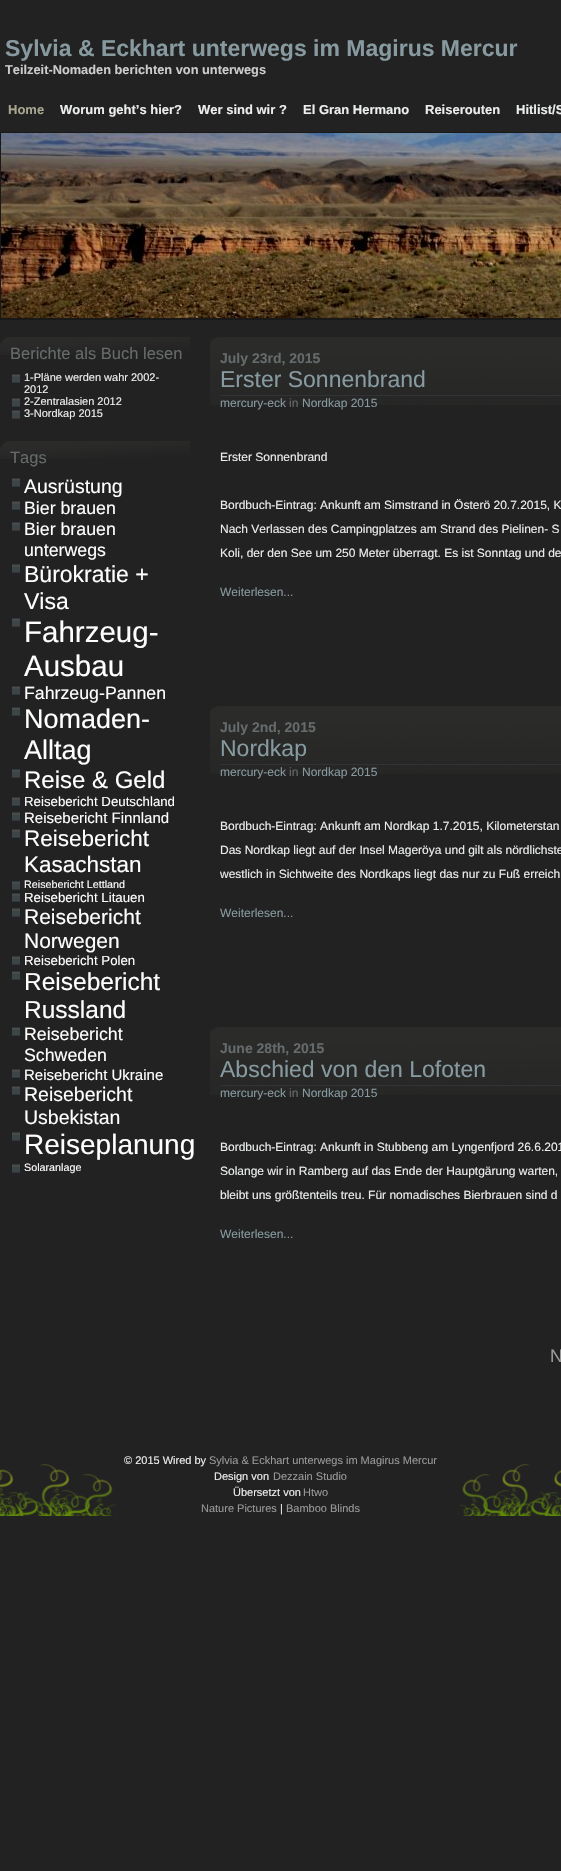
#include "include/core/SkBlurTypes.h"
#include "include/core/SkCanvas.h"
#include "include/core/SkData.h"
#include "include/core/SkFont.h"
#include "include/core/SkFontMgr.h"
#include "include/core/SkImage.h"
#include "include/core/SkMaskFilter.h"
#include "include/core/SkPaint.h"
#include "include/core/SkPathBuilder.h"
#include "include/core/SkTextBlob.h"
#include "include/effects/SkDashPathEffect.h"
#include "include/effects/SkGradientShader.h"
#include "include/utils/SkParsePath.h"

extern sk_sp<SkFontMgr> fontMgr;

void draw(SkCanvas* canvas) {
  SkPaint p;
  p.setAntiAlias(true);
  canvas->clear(SkColorSetRGB(35, 34, 34));
  canvas->drawImageRect(SkImages::DeferredFromEncodedData(SkData::MakeFromFileName("images/1.png")), SkRect::MakeLTRB(1, 133, 561, 318), SkSamplingOptions());
  p.setColor(SkColorSetRGB(25, 25, 25));
  canvas->drawRect(SkRect::MakeLTRB(0, 132, 561, 133), p);
  canvas->drawRect(SkRect::MakeLTRB(0, 318, 561, 320), p);
  canvas->drawRect(SkRect::MakeLTRB(0, 132, 1, 320), p);
  canvas->drawImageRect(SkImages::DeferredFromEncodedData(SkData::MakeFromFileName("images/2.png")), SkRect::MakeLTRB(0, 337, 190, 355), SkSamplingOptions());
  canvas->drawImageRect(SkImages::DeferredFromEncodedData(SkData::MakeFromFileName("images/3.png")), SkRect::MakeLTRB(12, 374, 20, 383), SkSamplingOptions());
  canvas->drawImageRect(SkImages::DeferredFromEncodedData(SkData::MakeFromFileName("images/3.png")), SkRect::MakeLTRB(12, 398, 20, 407), SkSamplingOptions());
  canvas->drawImageRect(SkImages::DeferredFromEncodedData(SkData::MakeFromFileName("images/3.png")), SkRect::MakeLTRB(12, 410, 20, 419), SkSamplingOptions());
  canvas->drawImageRect(SkImages::DeferredFromEncodedData(SkData::MakeFromFileName("images/2.png")), SkRect::MakeLTRB(0, 441, 190, 459), SkSamplingOptions());
  canvas->drawImageRect(SkImages::DeferredFromEncodedData(SkData::MakeFromFileName("images/3.png")), SkRect::MakeLTRB(12, 478, 20, 487), SkSamplingOptions());
  canvas->drawImageRect(SkImages::DeferredFromEncodedData(SkData::MakeFromFileName("images/3.png")), SkRect::MakeLTRB(12, 501, 20, 510), SkSamplingOptions());
  canvas->drawImageRect(SkImages::DeferredFromEncodedData(SkData::MakeFromFileName("images/3.png")), SkRect::MakeLTRB(12, 522, 20, 531), SkSamplingOptions());
  canvas->drawImageRect(SkImages::DeferredFromEncodedData(SkData::MakeFromFileName("images/3.png")), SkRect::MakeLTRB(12, 564, 20, 573), SkSamplingOptions());
  canvas->drawImageRect(SkImages::DeferredFromEncodedData(SkData::MakeFromFileName("images/3.png")), SkRect::MakeLTRB(12, 618, 20, 627), SkSamplingOptions());
  canvas->drawImageRect(SkImages::DeferredFromEncodedData(SkData::MakeFromFileName("images/3.png")), SkRect::MakeLTRB(12, 686, 20, 695), SkSamplingOptions());
  canvas->drawImageRect(SkImages::DeferredFromEncodedData(SkData::MakeFromFileName("images/3.png")), SkRect::MakeLTRB(12, 707, 20, 716), SkSamplingOptions());
  canvas->drawImageRect(SkImages::DeferredFromEncodedData(SkData::MakeFromFileName("images/3.png")), SkRect::MakeLTRB(12, 769, 20, 778), SkSamplingOptions());
  canvas->drawImageRect(SkImages::DeferredFromEncodedData(SkData::MakeFromFileName("images/3.png")), SkRect::MakeLTRB(12, 797, 20, 806), SkSamplingOptions());
  canvas->drawImageRect(SkImages::DeferredFromEncodedData(SkData::MakeFromFileName("images/3.png")), SkRect::MakeLTRB(12, 812, 20, 821), SkSamplingOptions());
  canvas->drawImageRect(SkImages::DeferredFromEncodedData(SkData::MakeFromFileName("images/3.png")), SkRect::MakeLTRB(12, 829, 20, 838), SkSamplingOptions());
  canvas->drawImageRect(SkImages::DeferredFromEncodedData(SkData::MakeFromFileName("images/3.png")), SkRect::MakeLTRB(12, 881, 20, 890), SkSamplingOptions());
  canvas->drawImageRect(SkImages::DeferredFromEncodedData(SkData::MakeFromFileName("images/3.png")), SkRect::MakeLTRB(12, 893, 20, 902), SkSamplingOptions());
  canvas->drawImageRect(SkImages::DeferredFromEncodedData(SkData::MakeFromFileName("images/3.png")), SkRect::MakeLTRB(12, 908, 20, 917), SkSamplingOptions());
  canvas->drawImageRect(SkImages::DeferredFromEncodedData(SkData::MakeFromFileName("images/3.png")), SkRect::MakeLTRB(12, 956, 20, 965), SkSamplingOptions());
  canvas->drawImageRect(SkImages::DeferredFromEncodedData(SkData::MakeFromFileName("images/3.png")), SkRect::MakeLTRB(12, 971, 20, 980), SkSamplingOptions());
  canvas->drawImageRect(SkImages::DeferredFromEncodedData(SkData::MakeFromFileName("images/3.png")), SkRect::MakeLTRB(12, 1027, 20, 1036), SkSamplingOptions());
  canvas->drawImageRect(SkImages::DeferredFromEncodedData(SkData::MakeFromFileName("images/3.png")), SkRect::MakeLTRB(12, 1069, 20, 1078), SkSamplingOptions());
  canvas->drawImageRect(SkImages::DeferredFromEncodedData(SkData::MakeFromFileName("images/3.png")), SkRect::MakeLTRB(12, 1086, 20, 1095), SkSamplingOptions());
  canvas->drawImageRect(SkImages::DeferredFromEncodedData(SkData::MakeFromFileName("images/3.png")), SkRect::MakeLTRB(12, 1132, 20, 1141), SkSamplingOptions());
  canvas->drawImageRect(SkImages::DeferredFromEncodedData(SkData::MakeFromFileName("images/3.png")), SkRect::MakeLTRB(12, 1164, 20, 1173), SkSamplingOptions());
  canvas->drawImageRect(SkImages::DeferredFromEncodedData(SkData::MakeFromFileName("images/4.png")), SkRect::MakeLTRB(210, 337, 561, 405), SkSamplingOptions());
  p.setColor(SkColorSetRGB(49, 52, 53));
  canvas->drawRect(SkRect::MakeLTRB(220, 395, 561, 396), p);
  canvas->drawImageRect(SkImages::DeferredFromEncodedData(SkData::MakeFromFileName("images/4.png")), SkRect::MakeLTRB(210, 706, 561, 774), SkSamplingOptions());
  canvas->drawRect(SkRect::MakeLTRB(220, 764, 561, 765), p);
  canvas->drawImageRect(SkImages::DeferredFromEncodedData(SkData::MakeFromFileName("images/4.png")), SkRect::MakeLTRB(210, 1027, 561, 1095), SkSamplingOptions());
  canvas->drawRect(SkRect::MakeLTRB(220, 1085, 561, 1086), p);
  canvas->drawImageRect(SkImages::DeferredFromEncodedData(SkData::MakeFromFileName("images/5.png")), SkRect::MakeLTRB(0, 1464, 561, 1516), SkSamplingOptions());
  SkFont font1(fontMgr->matchFamilyStyle("Liberation Sans", SkFontStyle::Bold()), 23);
  font1.setSubpixel(true);
  p.setColor(SkColorSetRGB(134, 154, 160));
  canvas->drawString("Sylvia & Eckhart unterwegs im Magirus Mercur", 5, 56, font1, p);
  SkFont font2(fontMgr->matchFamilyStyle("Liberation Sans", SkFontStyle::Bold()), 12.8f);
  font2.setSubpixel(true);
  p.setColor(SkColorSetRGB(204, 204, 204));
  canvas->drawString("Teilzeit-Nomaden berichten von unterwegs", 5, 74, font2, p);
  SkFont font3(fontMgr->matchFamilyStyle("Liberation Sans", SkFontStyle::Bold()), 13);
  font3.setSubpixel(true);
  p.setColor(SkColorSetRGB(167, 166, 144));
  canvas->drawString("Home", 8, 114, font3, p);
  p.setColor(SkColorSetRGB(236, 238, 238));
  canvas->drawString("Worum geht’s hier?", 60, 114, font3, p);
  canvas->drawString("Wer sind wir ?", 198, 114, font3, p);
  canvas->drawString("El Gran Hermano", 303, 114, font3, p);
  canvas->drawString("Reiserouten", 425, 114, font3, p);
  canvas->drawString("Hitlist/S", 516, 114, font3, p);
  SkFont font4(fontMgr->matchFamilyStyle("Liberation Sans", SkFontStyle::Normal()), 16.5f);
  font4.setSubpixel(true);
  p.setColor(SkColorSetRGB(101, 106, 107));
  canvas->drawString("Berichte als Buch lesen", 10, 359, font4, p);
  SkFont font5(fontMgr->matchFamilyStyle("Liberation Sans", SkFontStyle::Normal()), 11);
  font5.setSubpixel(true);
  p.setColor(SkColorSetRGB(236, 238, 238));
  canvas->drawString("1-Pläne werden wahr 2002-", 24, 381, font5, p);
  canvas->drawString("2012", 24, 393, font5, p);
  canvas->drawString("2-Zentralasien 2012", 24, 405, font5, p);
  canvas->drawString("3-Nordkap 2015", 24, 417, font5, p);
  p.setColor(SkColorSetRGB(101, 106, 107));
  canvas->drawString("Tags", 10, 463, font4, p);
  SkFont font6(fontMgr->matchFamilyStyle("Liberation Sans", SkFontStyle::Normal()), 19.5f);
  font6.setSubpixel(true);
  p.setColor(SK_ColorWHITE);
  canvas->drawString("Ausrüstung", 24, 493, font6, p);
  SkFont font7(fontMgr->matchFamilyStyle("Liberation Sans", SkFontStyle::Normal()), 17.75f);
  font7.setSubpixel(true);
  canvas->drawString("Bier brauen", 24, 514, font7, p);
  canvas->drawString("Bier brauen", 24, 535, font7, p);
  canvas->drawString("unterwegs", 24, 556, font7, p);
  SkFont font8(fontMgr->matchFamilyStyle("Liberation Sans", SkFontStyle::Normal()), 23);
  font8.setSubpixel(true);
  canvas->drawString("Bürokratie +", 24, 582, font8, p);
  canvas->drawString("Visa", 24, 609, font8, p);
  SkFont font9(fontMgr->matchFamilyStyle("Liberation Sans", SkFontStyle::Normal()), 29.5f);
  font9.setSubpixel(true);
  canvas->drawString("Fahrzeug-", 24, 642, font9, p);
  canvas->drawString("Ausbau", 24, 676, font9, p);
  canvas->drawString("Fahrzeug-Pannen", 24, 699, font7, p);
  SkFont font10(fontMgr->matchFamilyStyle("Liberation Sans", SkFontStyle::Normal()), 27);
  font10.setSubpixel(true);
  canvas->drawString("Nomaden-", 24, 728, font10, p);
  canvas->drawString("Alltag", 24, 759, font10, p);
  SkFont font11(fontMgr->matchFamilyStyle("Liberation Sans", SkFontStyle::Normal()), 24);
  font11.setSubpixel(true);
  canvas->drawString("Reise & Geld", 24, 788, font11, p);
  SkFont font12(fontMgr->matchFamilyStyle("Liberation Sans", SkFontStyle::Normal()), 13.25f);
  font12.setSubpixel(true);
  canvas->drawString("Reisebericht Deutschland", 24, 806, font12, p);
  SkFont font13(fontMgr->matchFamilyStyle("Liberation Sans", SkFontStyle::Normal()), 15);
  font13.setSubpixel(true);
  canvas->drawString("Reisebericht Finnland", 24, 823, font13, p);
  SkFont font14(fontMgr->matchFamilyStyle("Liberation Sans", SkFontStyle::Normal()), 22.5f);
  font14.setSubpixel(true);
  canvas->drawString("Reisebericht", 24, 846, font14, p);
  canvas->drawString("Kasachstan", 24, 872, font14, p);
  SkFont font15(fontMgr->matchFamilyStyle("Liberation Sans", SkFontStyle::Normal()), 10.75f);
  font15.setSubpixel(true);
  canvas->drawString("Reisebericht Lettland", 24, 888, font15, p);
  canvas->drawString("Reisebericht Litauen", 24, 902, font12, p);
  SkFont font16(fontMgr->matchFamilyStyle("Liberation Sans", SkFontStyle::Normal()), 21);
  font16.setSubpixel(true);
  canvas->drawString("Reisebericht", 24, 924, font16, p);
  canvas->drawString("Norwegen", 24, 948, font16, p);
  canvas->drawString("Reisebericht Polen", 24, 965, font12, p);
  SkFont font17(fontMgr->matchFamilyStyle("Liberation Sans", SkFontStyle::Normal()), 24.5f);
  font17.setSubpixel(true);
  canvas->drawString("Reisebericht", 24, 990, font17, p);
  canvas->drawString("Russland", 24, 1018, font17, p);
  canvas->drawString("Reisebericht", 24, 1040, font7, p);
  canvas->drawString("Schweden", 24, 1061, font7, p);
  canvas->drawString("Reisebericht Ukraine", 24, 1080, font13, p);
  canvas->drawString("Reisebericht", 24, 1101, font6, p);
  canvas->drawString("Usbekistan", 24, 1124, font6, p);
  SkFont font18(fontMgr->matchFamilyStyle("Liberation Sans", SkFontStyle::Normal()), 28);
  font18.setSubpixel(true);
  canvas->drawString("Reiseplanung", 24, 1154, font18, p);
  canvas->drawString("Solaranlage", 24, 1171, font15, p);
  SkFont font19(fontMgr->matchFamilyStyle("Liberation Sans", SkFontStyle::Bold()), 14);
  font19.setSubpixel(true);
  p.setColor(SkColorSetRGB(101, 106, 107));
  canvas->drawString("July 23rd, 2015", 220, 363, font19, p);
  p.setColor(SkColorSetRGB(134, 154, 160));
  canvas->drawString("Erster Sonnenbrand", 220, 387, font8, p);
  SkFont font20(fontMgr->matchFamilyStyle("Liberation Sans", SkFontStyle::Normal()), 12);
  font20.setSubpixel(true);
  canvas->drawString("mercury-eck", 220, 407, font20, p);
  p.setColor(SkColorSetRGB(101, 106, 107));
  canvas->drawString("in", 289, 407, font20, p);
  p.setColor(SkColorSetRGB(134, 154, 160));
  canvas->drawString("Nordkap 2015", 302, 407, font20, p);
  p.setColor(SkColorSetRGB(236, 238, 238));
  canvas->drawString("Erster Sonnenbrand", 220, 461, font20, p);
  canvas->drawString("Bordbuch-Eintrag: Ankunft am Simstrand in Österö 20.7.2015, K", 220, 509, font20, p);
  canvas->drawString("Nach Verlassen des Campingplatzes am Strand des Pielinen- S", 220, 533, font20, p);
  canvas->drawString("Koli, der den See um 250 Meter überragt. Es ist Sonntag und de", 220, 557, font20, p);
  p.setColor(SkColorSetRGB(134, 154, 160));
  canvas->drawString("Weiterlesen...", 220, 596, font20, p);
  p.setColor(SkColorSetRGB(101, 106, 107));
  canvas->drawString("July 2nd, 2015", 220, 732, font19, p);
  p.setColor(SkColorSetRGB(134, 154, 160));
  canvas->drawString("Nordkap", 220, 756, font8, p);
  canvas->drawString("mercury-eck", 220, 776, font20, p);
  p.setColor(SkColorSetRGB(101, 106, 107));
  canvas->drawString("in", 289, 776, font20, p);
  p.setColor(SkColorSetRGB(134, 154, 160));
  canvas->drawString("Nordkap 2015", 302, 776, font20, p);
  p.setColor(SkColorSetRGB(236, 238, 238));
  canvas->drawString("Bordbuch-Eintrag: Ankunft am Nordkap 1.7.2015, Kilometerstan", 220, 830, font20, p);
  canvas->drawString("Das Nordkap liegt auf der Insel Mageröya und gilt als nördlichste", 220, 854, font20, p);
  canvas->drawString("westlich in Sichtweite des Nordkaps liegt das nur zu Fuß erreich", 220, 878, font20, p);
  p.setColor(SkColorSetRGB(134, 154, 160));
  canvas->drawString("Weiterlesen...", 220, 917, font20, p);
  p.setColor(SkColorSetRGB(101, 106, 107));
  canvas->drawString("June 28th, 2015", 220, 1053, font19, p);
  p.setColor(SkColorSetRGB(134, 154, 160));
  canvas->drawString("Abschied von den Lofoten", 220, 1077, font8, p);
  canvas->drawString("mercury-eck", 220, 1097, font20, p);
  p.setColor(SkColorSetRGB(101, 106, 107));
  canvas->drawString("in", 289, 1097, font20, p);
  p.setColor(SkColorSetRGB(134, 154, 160));
  canvas->drawString("Nordkap 2015", 302, 1097, font20, p);
  p.setColor(SkColorSetRGB(236, 238, 238));
  canvas->drawString("Bordbuch-Eintrag: Ankunft in Stubbeng am Lyngenfjord 26.6.201", 220, 1151, font20, p);
  canvas->drawString("Solange wir in Ramberg auf das Ende der Hauptgärung warten,", 220, 1175, font20, p);
  canvas->drawString("bleibt uns größtenteils treu. Für nomadisches Bierbrauen sind d", 220, 1199, font20, p);
  p.setColor(SkColorSetRGB(134, 154, 160));
  canvas->drawString("Weiterlesen...", 220, 1238, font20, p);
  SkFont font21(fontMgr->matchFamilyStyle("Liberation Sans", SkFontStyle::Normal()), 18);
  font21.setSubpixel(true);
  p.setColor(SkColorSetRGB(153, 153, 153));
  canvas->drawString("N", 550, 1362, font21, p);
  p.setColor(SkColorSetRGB(236, 238, 238));
  canvas->drawString("© 2015 Wired by", 124, 1464, font5, p);
  p.setColor(SkColorSetRGB(153, 153, 153));
  canvas->drawString("Sylvia & Eckhart unterwegs im Magirus Mercur", 209, 1464, font5, p);
  p.setColor(SkColorSetRGB(236, 238, 238));
  canvas->drawString("Design von", 214, 1480, font5, p);
  p.setColor(SkColorSetRGB(153, 153, 153));
  canvas->drawString("Dezzain Studio", 273, 1480, font5, p);
  p.setColor(SkColorSetRGB(236, 238, 238));
  canvas->drawString("Übersetzt von", 233, 1496, font5, p);
  p.setColor(SkColorSetRGB(153, 153, 153));
  canvas->drawString("Htwo", 303, 1496, font5, p);
  canvas->drawString("Nature Pictures", 201, 1512, font5, p);
  p.setColor(SkColorSetRGB(236, 238, 238));
  canvas->drawString("|", 280, 1512, font5, p);
  p.setColor(SkColorSetRGB(153, 153, 153));
  canvas->drawString("Bamboo Blinds", 286, 1512, font5, p);
}
